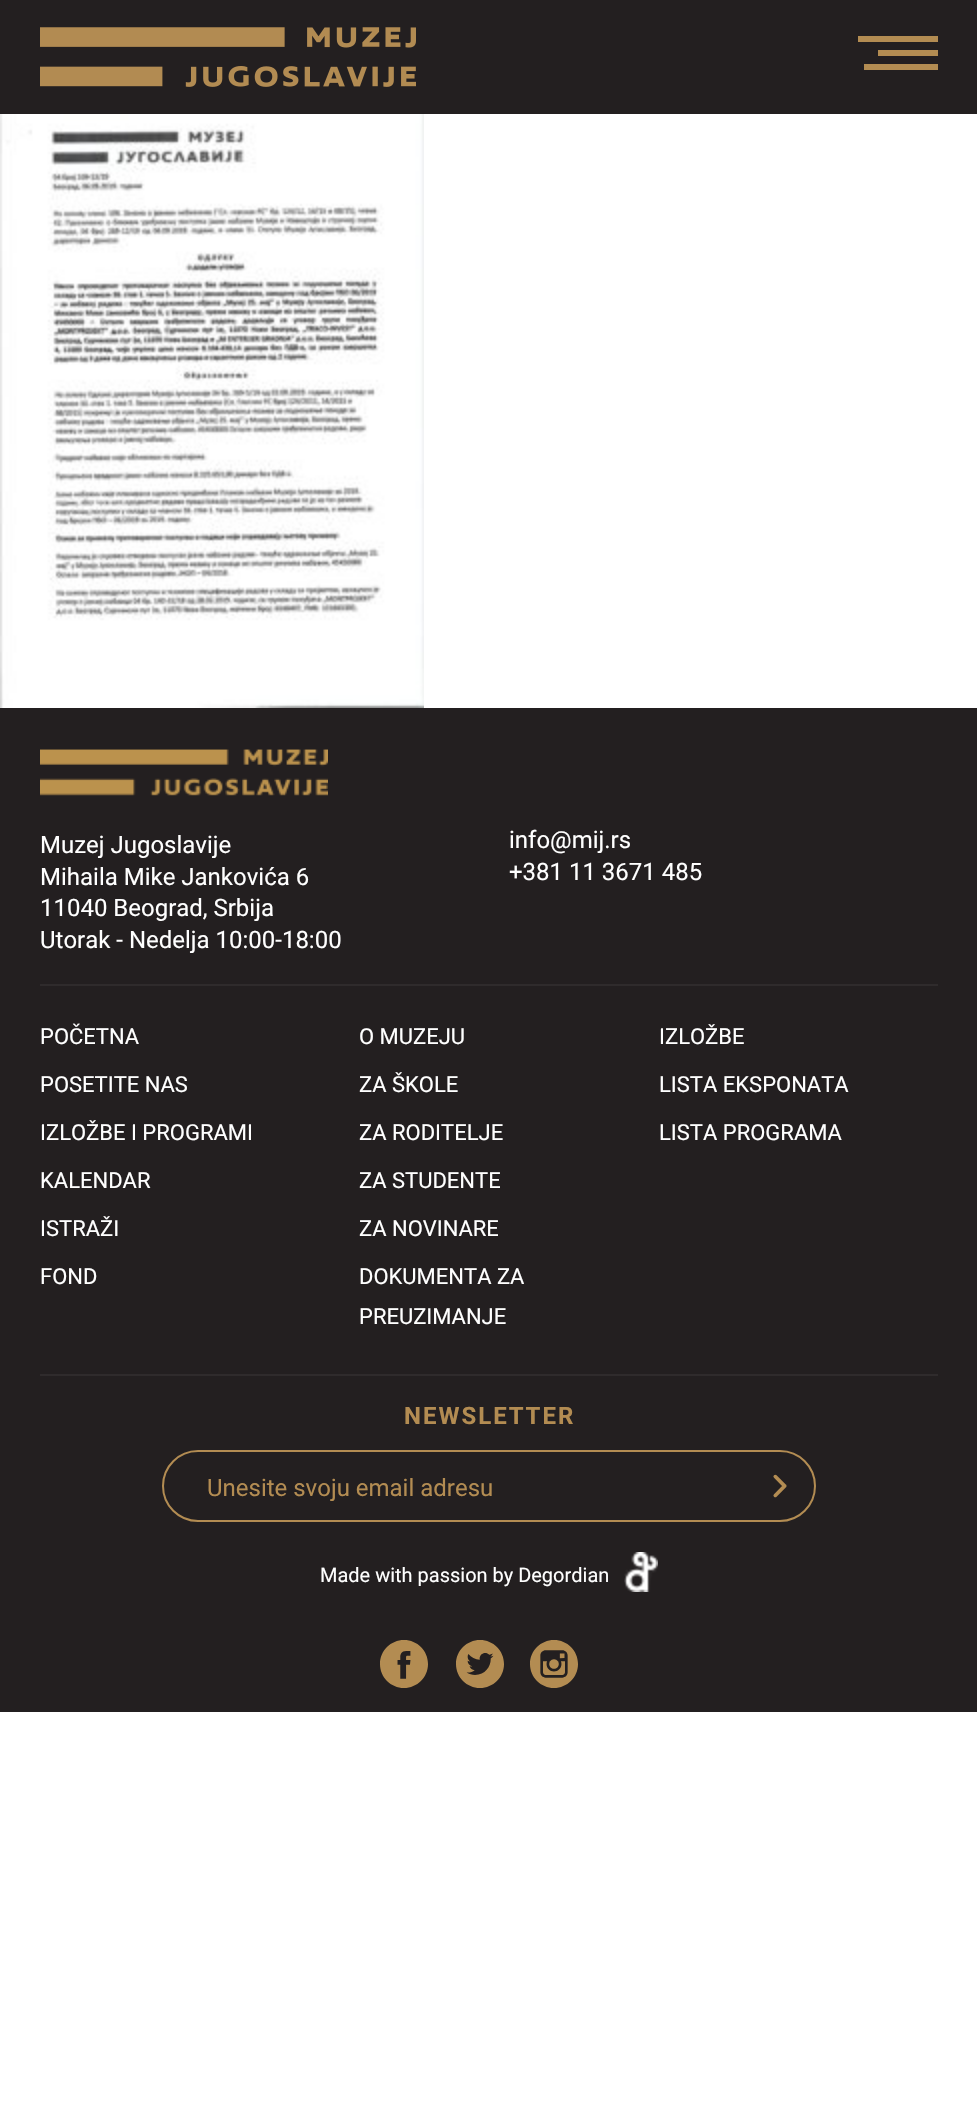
#include "include/core/SkBlurTypes.h"
#include "include/core/SkCanvas.h"
#include "include/core/SkData.h"
#include "include/core/SkFont.h"
#include "include/core/SkFontMgr.h"
#include "include/core/SkImage.h"
#include "include/core/SkMaskFilter.h"
#include "include/core/SkPaint.h"
#include "include/core/SkPathBuilder.h"
#include "include/core/SkTextBlob.h"
#include "include/effects/SkDashPathEffect.h"
#include "include/effects/SkGradientShader.h"
#include "include/utils/SkParsePath.h"

extern sk_sp<SkFontMgr> fontMgr;

void draw(SkCanvas* canvas) {
  SkPaint p;
  p.setAntiAlias(true);
  auto spacedText = [&](const char* s, float x, float y, const SkFont& font, const SkPaint& ink, float letter, float word) {
    std::vector<SkGlyphID> glyphs(font.countText(s, strlen(s), SkTextEncoding::kUTF8));
    std::vector<float> xs(glyphs.size());
    font.textToGlyphs(s, strlen(s), SkTextEncoding::kUTF8, glyphs);
    font.getXPos(glyphs, xs, x);
    float extra = 0;
    for (size_t i = 0; i < glyphs.size(); i++) {
      xs[i] += extra;
      extra += letter + word * (glyphs[i] == font.unicharToGlyph(' '));
    }
    canvas->drawTextBlob(SkTextBlob::MakeFromPosHGlyphs(glyphs, xs, y, font), 0, 0, ink);
  };
  canvas->clear(SK_ColorWHITE);
  p.setColor(SkColorSetRGB(35, 31, 32));
  canvas->drawRect(SkRect::MakeLTRB(0, 0, 977, 114), p);
  canvas->drawImageRect(SkImages::DeferredFromEncodedData(SkData::MakeFromFileName("images/1.png")), SkRect::MakeLTRB(40, 27, 416, 87), SkSamplingOptions());
  p.setColor(SkColorSetRGB(179, 140, 82));
  canvas->drawRect(SkRect::MakeLTRB(858, 36, 938, 42), p);
  canvas->drawRect(SkRect::MakeLTRB(878, 50, 938, 56), p);
  canvas->drawRect(SkRect::MakeLTRB(864, 64, 938, 70), p);
  canvas->drawImageRect(SkImages::DeferredFromEncodedData(SkData::MakeFromFileName("images/2.png")), SkRect::MakeLTRB(0, 114, 424, 708), SkSamplingOptions());
  p.setColor(SkColorSetRGB(35, 31, 32));
  canvas->drawRect(SkRect::MakeLTRB(0, 708, 977, 1712), p);
  canvas->drawImageRect(SkImages::DeferredFromEncodedData(SkData::MakeFromFileName("images/3.png")), SkRect::MakeLTRB(40, 749, 328, 796), SkSamplingOptions());
  p.setColor(SkColorSetRGB(47, 43, 44));
  canvas->drawRect(SkRect::MakeLTRB(40, 984, 938, 986), p);
  canvas->drawRect(SkRect::MakeLTRB(40, 1374, 938, 1376), p);
  p.setStyle(SkPaint::kStroke_Style);
  p.setStrokeWidth(2);
  p.setColor(SkColorSetRGB(179, 140, 82));
  canvas->drawRoundRect(SkRect::MakeLTRB(163, 1451, 815, 1521), 35, 35, p);
  canvas->drawImageRect(SkImages::DeferredFromEncodedData(SkData::MakeFromFileName("images/4.png")), SkRect::MakeLTRB(773, 1474, 787, 1498), SkSamplingOptions());
  canvas->drawImageRect(SkImages::DeferredFromEncodedData(SkData::MakeFromFileName("images/5.png")), SkRect::MakeLTRB(624, 1552, 658, 1592), SkSamplingOptions());
  canvas->drawImageRect(SkImages::DeferredFromEncodedData(SkData::MakeFromFileName("images/6.png")), SkRect::MakeLTRB(380, 1640, 428, 1688), SkSamplingOptions());
  canvas->drawImageRect(SkImages::DeferredFromEncodedData(SkData::MakeFromFileName("images/7.png")), SkRect::MakeLTRB(456, 1640, 504, 1688), SkSamplingOptions());
  canvas->drawImageRect(SkImages::DeferredFromEncodedData(SkData::MakeFromFileName("images/8.png")), SkRect::MakeLTRB(530, 1640, 578, 1688), SkSamplingOptions());
  SkFont font1(fontMgr->matchFamilyStyle("Roboto", SkFontStyle::Normal()), 24);
  font1.setSubpixel(true);
  p.setStyle(SkPaint::kFill_Style);
  p.setColor(SK_ColorWHITE);
  canvas->drawString("Muzej Jugoslavije", 40, 853, font1, p);
  canvas->drawString("Mihaila Mike Jankovića 6", 40, 885, font1, p);
  canvas->drawString("11040 Beograd, Srbija", 40, 916, font1, p);
  canvas->drawString("Utorak - Nedelja 10:00-18:00", 40, 948, font1, p);
  canvas->drawString("info@mij.rs", 509, 848, font1, p);
  canvas->drawString("+381 11 3671 485", 509, 880, font1, p);
  SkFont font2(fontMgr->matchFamilyStyle("Roboto", SkFontStyle::Normal()), 22);
  font2.setSubpixel(true);
  canvas->drawString("POČETNA", 40, 1044, font2, p);
  canvas->drawString("POSETITE NAS", 40, 1092, font2, p);
  canvas->drawString("IZLOŽBE I PROGRAMI", 40, 1140, font2, p);
  canvas->drawString("KALENDAR", 40, 1188, font2, p);
  canvas->drawString("ISTRAŽI", 40, 1236, font2, p);
  canvas->drawString("FOND", 40, 1284, font2, p);
  canvas->drawString("O MUZEJU", 359, 1044, font2, p);
  canvas->drawString("ZA ŠKOLE", 359, 1092, font2, p);
  canvas->drawString("ZA RODITELJE", 359, 1140, font2, p);
  canvas->drawString("ZA STUDENTE", 359, 1188, font2, p);
  canvas->drawString("ZA NOVINARE", 359, 1236, font2, p);
  canvas->drawString("DOKUMENTA ZA", 359, 1284, font2, p);
  canvas->drawString("PREUZIMANJE", 359, 1324, font2, p);
  canvas->drawString("IZLOŽBE", 659, 1044, font2, p);
  canvas->drawString("LISTA EKSPONATA", 659, 1092, font2, p);
  canvas->drawString("LISTA PROGRAMA", 659, 1140, font2, p);
  SkFont font3(fontMgr->matchFamilyStyle("Roboto", SkFontStyle::Bold()), 24);
  font3.setSubpixel(true);
  p.setColor(SkColorSetRGB(179, 140, 82));
  spacedText("NEWSLETTER", 404, 1424, font3, p, 2, 0);
  canvas->drawString("Unesite svoju email adresu", 207, 1496, font1, p);
  SkFont font4(fontMgr->matchFamilyStyle("Roboto", SkFontStyle::Normal()), 20);
  font4.setSubpixel(true);
  p.setColor(SK_ColorWHITE);
  canvas->drawString("Made with passion by Degordian", 320, 1582, font4, p);
}
